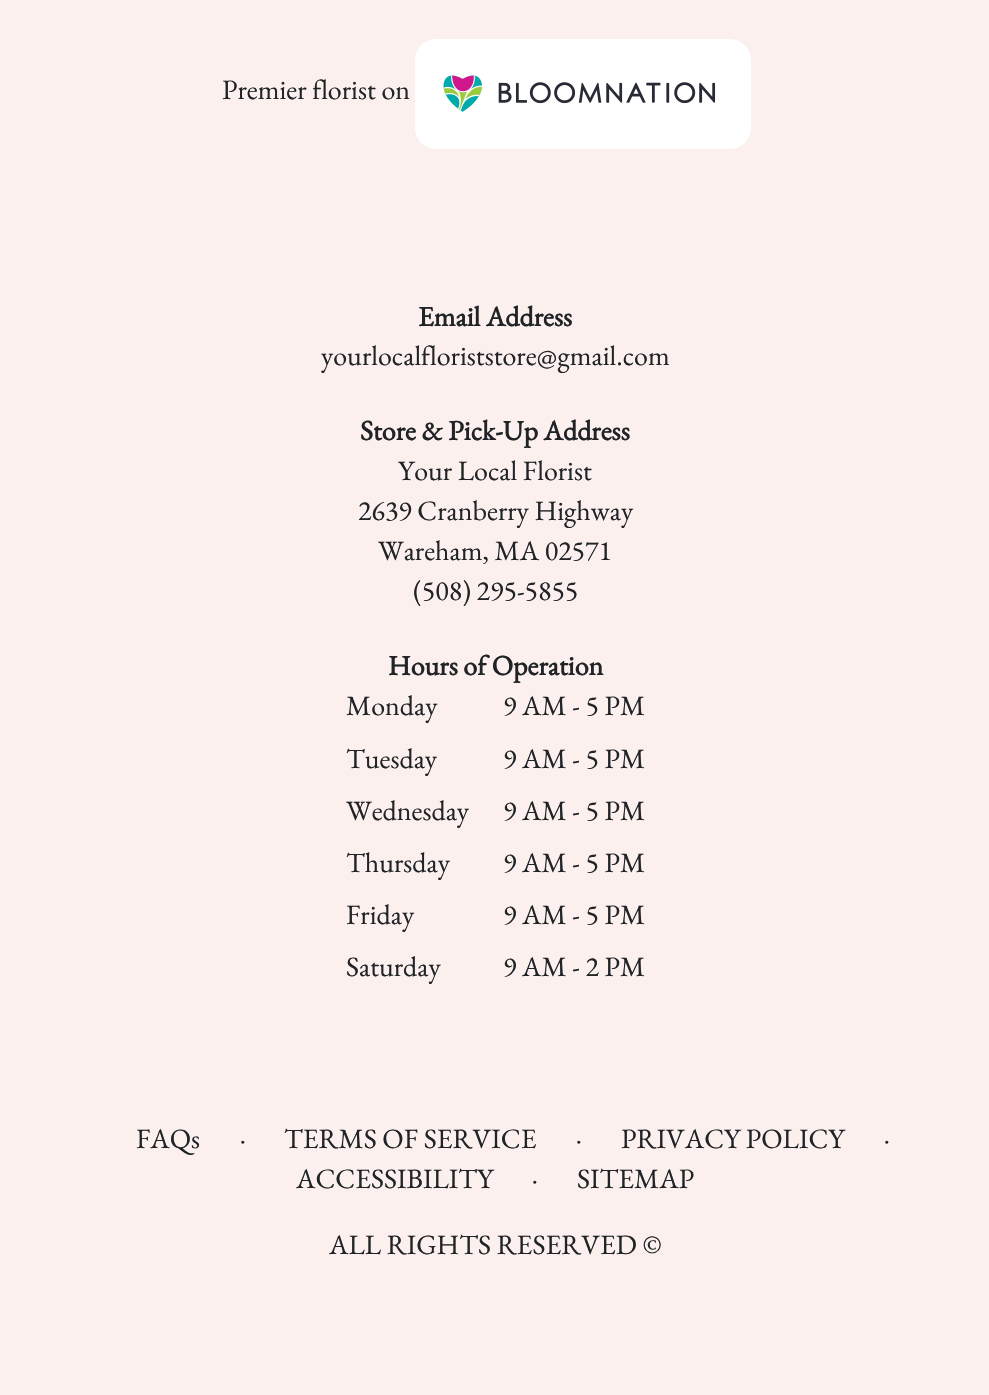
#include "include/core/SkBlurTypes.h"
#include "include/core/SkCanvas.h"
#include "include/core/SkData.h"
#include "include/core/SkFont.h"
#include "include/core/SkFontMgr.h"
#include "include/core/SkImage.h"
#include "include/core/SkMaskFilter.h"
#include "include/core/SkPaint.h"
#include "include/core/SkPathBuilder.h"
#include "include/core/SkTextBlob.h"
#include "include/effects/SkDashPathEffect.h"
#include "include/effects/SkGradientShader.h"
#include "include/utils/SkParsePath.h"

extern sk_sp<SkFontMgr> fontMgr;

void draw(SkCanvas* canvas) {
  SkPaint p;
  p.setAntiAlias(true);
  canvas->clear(SkColorSetRGB(252, 240, 238));
  p.setColor(SK_ColorWHITE);
  canvas->drawRoundRect(SkRect::MakeLTRB(415, 39, 751, 149), 21, 21, p);
  canvas->drawImageRect(SkImages::DeferredFromEncodedData(SkData::MakeFromFileName("images/1.png")), SkRect::MakeLTRB(443, 75, 716, 112), SkSamplingOptions());
  SkFont font1(fontMgr->matchFamilyStyle("EB Garamond", SkFontStyle::Normal()), 28);
  font1.setSubpixel(true);
  p.setColor(SkColorSetRGB(33, 36, 39));
  canvas->drawString("Premier florist on", 222, 99, font1, p);
  SkFont font2(fontMgr->matchFamilyStyle("EB Garamond", SkFontStyle::Bold()), 28);
  font2.setSubpixel(true);
  canvas->drawString("Email Address", 418, 326, font2, p);
  canvas->drawString("yourlocalfloriststore@gmail.com", 321, 365, font1, p);
  canvas->drawString("Store & Pick-Up Address", 360, 440, font2, p);
  canvas->drawString("Your Local Florist", 398, 480, font1, p);
  canvas->drawString("2639 Cranberry Highway", 358, 520, font1, p);
  canvas->drawString("Wareham, MA 02571", 378, 560, font1, p);
  canvas->drawString("(508) 295-5855", 413, 600, font1, p);
  canvas->drawString("Hours of Operation", 388, 675, font2, p);
  canvas->drawString("Monday", 346, 715, font1, p);
  canvas->drawString("9 AM - 5 PM", 503, 715, font1, p);
  canvas->drawString("Tuesday", 346, 768, font1, p);
  canvas->drawString("9 AM - 5 PM", 503, 768, font1, p);
  canvas->drawString("Wednesday", 346, 820, font1, p);
  canvas->drawString("9 AM - 5 PM", 503, 820, font1, p);
  canvas->drawString("Thursday", 346, 872, font1, p);
  canvas->drawString("9 AM - 5 PM", 503, 872, font1, p);
  canvas->drawString("Friday", 346, 924, font1, p);
  canvas->drawString("9 AM - 5 PM", 503, 924, font1, p);
  canvas->drawString("Saturday", 346, 976, font1, p);
  canvas->drawString("9 AM - 2 PM", 503, 976, font1, p);
  canvas->drawString("FAQs", 136, 1148, font1, p);
  canvas->drawString("·", 240, 1148, font1, p);
  canvas->drawString("TERMS OF SERVICE", 284, 1148, font1, p);
  canvas->drawString("·", 576, 1148, font1, p);
  canvas->drawString("PRIVACY POLICY", 621, 1148, font1, p);
  canvas->drawString("·", 884, 1148, font1, p);
  canvas->drawString("ACCESSIBILITY", 296, 1188, font1, p);
  canvas->drawString("·", 532, 1188, font1, p);
  canvas->drawString("SITEMAP", 577, 1188, font1, p);
  canvas->drawString("ALL RIGHTS RESERVED ©", 329, 1254, font1, p);
}
